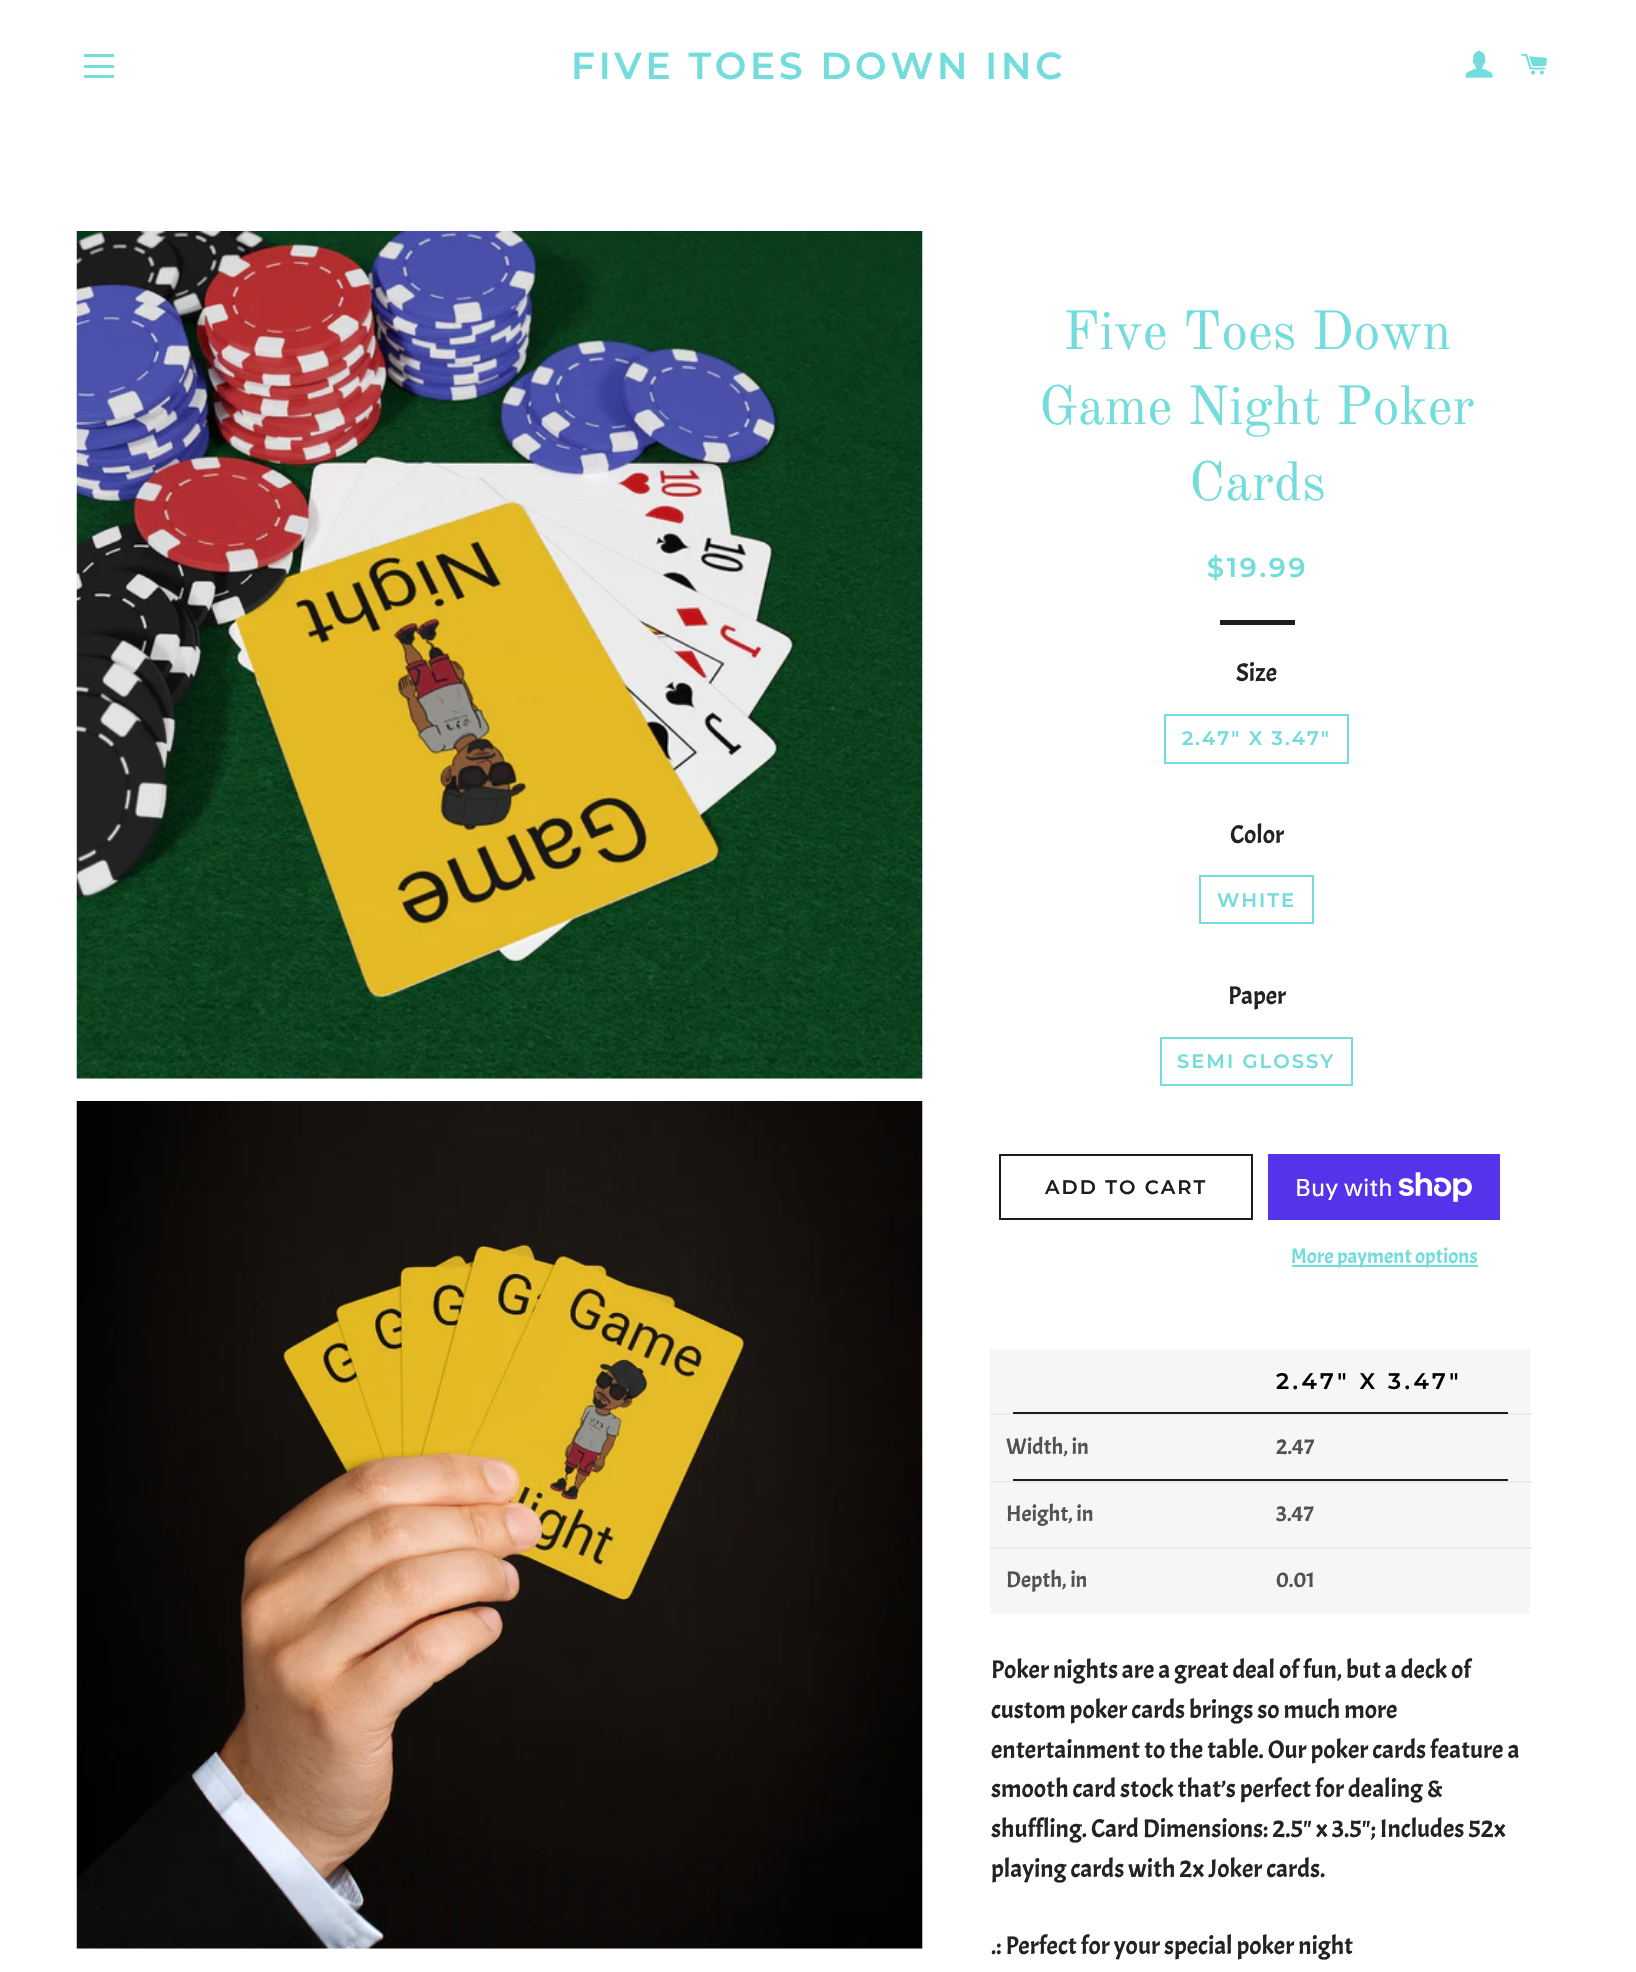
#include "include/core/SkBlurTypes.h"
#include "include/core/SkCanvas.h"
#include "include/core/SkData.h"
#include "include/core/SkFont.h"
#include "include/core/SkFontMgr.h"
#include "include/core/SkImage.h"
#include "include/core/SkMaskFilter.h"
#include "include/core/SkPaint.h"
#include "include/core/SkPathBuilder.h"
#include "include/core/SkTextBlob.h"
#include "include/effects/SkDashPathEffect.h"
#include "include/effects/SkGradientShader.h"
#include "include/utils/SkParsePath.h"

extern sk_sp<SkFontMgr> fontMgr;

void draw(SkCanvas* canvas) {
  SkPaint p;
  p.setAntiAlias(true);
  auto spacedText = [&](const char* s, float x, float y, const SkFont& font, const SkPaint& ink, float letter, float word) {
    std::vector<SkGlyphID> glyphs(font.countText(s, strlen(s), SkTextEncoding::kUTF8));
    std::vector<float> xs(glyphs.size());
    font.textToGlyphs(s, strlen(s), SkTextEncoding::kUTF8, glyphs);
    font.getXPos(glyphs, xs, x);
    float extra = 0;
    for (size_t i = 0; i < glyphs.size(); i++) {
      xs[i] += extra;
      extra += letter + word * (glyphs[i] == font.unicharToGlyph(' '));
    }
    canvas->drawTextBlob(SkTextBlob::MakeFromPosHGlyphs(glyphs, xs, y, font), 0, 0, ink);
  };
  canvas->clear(SK_ColorWHITE);
  p.setColor(SkColorSetRGB(115, 220, 220));
  canvas->drawRect(SkRect::MakeLTRB(84, 54, 114, 57), p);
  canvas->drawRect(SkRect::MakeLTRB(84, 65, 114, 68), p);
  canvas->drawRect(SkRect::MakeLTRB(84, 75, 114, 78), p);
  canvas->drawImageRect(SkImages::DeferredFromEncodedData(SkData::MakeFromFileName("images/1.png")), SkRect::MakeLTRB(1465, 50, 1493, 78), SkSamplingOptions());
  canvas->drawImageRect(SkImages::DeferredFromEncodedData(SkData::MakeFromFileName("images/2.png")), SkRect::MakeLTRB(1521, 53, 1547, 75), SkSamplingOptions());
  p.setColor(SkColorSetRGB(247, 247, 247));
  canvas->drawRect(SkRect::MakeLTRB(77, 231, 923, 1079), p);
  canvas->drawImageRect(SkImages::DeferredFromEncodedData(SkData::MakeFromFileName("images/3.png")), SkRect::MakeLTRB(76, 231, 923, 1079), SkSamplingOptions());
  canvas->drawRect(SkRect::MakeLTRB(77, 1101, 923, 1949), p);
  canvas->drawImageRect(SkImages::DeferredFromEncodedData(SkData::MakeFromFileName("images/4.png")), SkRect::MakeLTRB(76, 1101, 923, 1949), SkSamplingOptions());
  p.setColor(SkColorSetRGB(28, 29, 29));
  canvas->drawRect(SkRect::MakeLTRB(1220, 620, 1295, 625), p);
  p.setStyle(SkPaint::kStroke_Style);
  p.setStrokeWidth(2);
  p.setColor(SkColorSetRGB(115, 220, 220));
  canvas->drawRect(SkRect::MakeLTRB(1165, 715, 1348, 763), p);
  canvas->drawRect(SkRect::MakeLTRB(1200, 876, 1313, 923), p);
  canvas->drawRect(SkRect::MakeLTRB(1161, 1038, 1352, 1085), p);
  p.setColor(SkColorSetRGB(28, 29, 29));
  canvas->drawRect(SkRect::MakeLTRB(1000, 1155, 1252, 1219), p);
  p.setStyle(SkPaint::kFill_Style);
  p.setColor(SkColorSetRGB(84, 51, 235));
  canvas->drawRect(SkRect::MakeLTRB(1268, 1154, 1500, 1220), p);
  canvas->drawImageRect(SkImages::DeferredFromEncodedData(SkData::MakeFromFileName("images/5.png")), SkRect::MakeLTRB(1398, 1172, 1472, 1202), SkSamplingOptions());
  p.setColor(SkColorSetRGB(115, 220, 220));
  canvas->drawRect(SkRect::MakeLTRB(1292, 1265, 1478, 1267), p);
  p.setColor(SkColorSetRGB(246, 246, 246));
  canvas->drawRect(SkRect::MakeLTRB(990, 1349, 1530, 1614), p);
  p.setColor(SkColorSetRGB(237, 237, 237));
  canvas->drawRect(SkRect::MakeLTRB(990, 1413, 1532, 1415), p);
  p.setColor(SkColorSetRGB(28, 29, 29));
  canvas->drawRect(SkRect::MakeLTRB(1013, 1412, 1508, 1414), p);
  canvas->drawRect(SkRect::MakeLTRB(1013, 1479, 1508, 1481), p);
  p.setColor(SkColorSetRGB(237, 237, 237));
  canvas->drawRect(SkRect::MakeLTRB(990, 1481, 1532, 1483), p);
  canvas->drawRect(SkRect::MakeLTRB(990, 1547, 1532, 1549), p);
  SkFont font1(fontMgr->matchFamilyStyle("Montserrat", SkFontStyle(600, SkFontStyle::kNormal_Width, SkFontStyle::kUpright_Slant)), 37.5f);
  font1.setSubpixel(true);
  p.setColor(SkColorSetRGB(115, 220, 220));
  spacedText("FIVE TOES DOWN INC", 571, 79, font1, p, 3.75f, 0);
  SkFont font2(fontMgr->matchFamilyStyle("Old Standard TT", SkFontStyle::Normal()), 54);
  font2.setSubpixel(true);
  canvas->drawString("Five Toes Down", 1063, 349, font2, p);
  canvas->drawString("Game Night Poker", 1039, 424, font2, p);
  canvas->drawString("Cards", 1189, 500, font2, p);
  SkFont font3(fontMgr->matchFamilyStyle("Montserrat", SkFontStyle(600, SkFontStyle::kNormal_Width, SkFontStyle::kUpright_Slant)), 27);
  font3.setSubpixel(true);
  spacedText("$19.99", 1207, 577, font3, p, 2.75f, 0);
  SkFont font4(fontMgr->matchFamilyStyle("Acme", SkFontStyle::Normal()), 25.5f);
  font4.setSubpixel(true);
  p.setColor(SkColorSetRGB(34, 35, 35));
  canvas->drawString("Size", 1236, 681, font4, p);
  SkFont font5(fontMgr->matchFamilyStyle("Montserrat", SkFontStyle(600, SkFontStyle::kNormal_Width, SkFontStyle::kUpright_Slant)), 19.5f);
  font5.setSubpixel(true);
  p.setColor(SkColorSetRGB(115, 220, 220));
  spacedText("2.47\" X 3.47\"", 1182, 745, font5, p, 2, 0);
  p.setColor(SkColorSetRGB(34, 35, 35));
  canvas->drawString("Color", 1230, 843, font4, p);
  p.setColor(SkColorSetRGB(115, 220, 220));
  spacedText("WHITE", 1217, 907, font5, p, 2, 0);
  p.setColor(SkColorSetRGB(34, 35, 35));
  canvas->drawString("Paper", 1228, 1004, font4, p);
  p.setColor(SkColorSetRGB(115, 220, 220));
  spacedText("SEMI GLOSSY", 1177, 1068, font5, p, 2, 0);
  p.setColor(SkColorSetRGB(28, 29, 29));
  spacedText("ADD TO CART", 1045, 1194, font5, p, 2, 0);
  SkFont font6(fontMgr->matchFamilyStyle("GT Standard", SkFontStyle::Normal()), 24);
  font6.setSubpixel(true);
  p.setColor(SK_ColorWHITE);
  canvas->drawString("Buy with", 1295, 1196, font6, p);
  SkFont font7(fontMgr->matchFamilyStyle("Acme", SkFontStyle::Normal()), 21);
  font7.setSubpixel(true);
  p.setColor(SkColorSetRGB(115, 220, 220));
  canvas->drawString("More payment options", 1291, 1263, font7, p);
  SkFont font8(fontMgr->matchFamilyStyle("Montserrat", SkFontStyle(600, SkFontStyle::kNormal_Width, SkFontStyle::kUpright_Slant)), 22.5f);
  font8.setSubpixel(true);
  p.setColor(SK_ColorBLACK);
  spacedText("2.47\" X 3.47\"", 1276, 1389, font8, p, 3.4f, 0);
  SkFont font9(fontMgr->matchFamilyStyle("Acme", SkFontStyle::Normal()), 22.5f);
  font9.setSubpixel(true);
  p.setColor(SkColorSetRGB(82, 82, 82));
  canvas->drawString("Width, in", 1006, 1454, font9, p);
  canvas->drawString("2.47", 1276, 1454, font9, p);
  canvas->drawString("Height, in", 1006, 1521, font9, p);
  canvas->drawString("3.47", 1276, 1521, font9, p);
  canvas->drawString("Depth, in", 1006, 1587, font9, p);
  canvas->drawString("0.01", 1276, 1587, font9, p);
  p.setColor(SkColorSetRGB(34, 35, 35));
  canvas->drawString("Poker nights are a great deal of fun, but a deck of", 991, 1678, font4, p);
  canvas->drawString("custom poker cards brings so much more", 991, 1718, font4, p);
  canvas->drawString("entertainment to the table. Our poker cards feature a", 991, 1758, font4, p);
  canvas->drawString("smooth card stock that’s perfect for dealing &", 991, 1797, font4, p);
  canvas->drawString("shuffling. Card Dimensions: 2.5\" x 3.5\"; Includes 52x", 991, 1837, font4, p);
  canvas->drawString("playing cards with 2x Joker cards.", 991, 1877, font4, p);
  canvas->drawString(".: Perfect for your special poker night", 991, 1954, font4, p);
}
